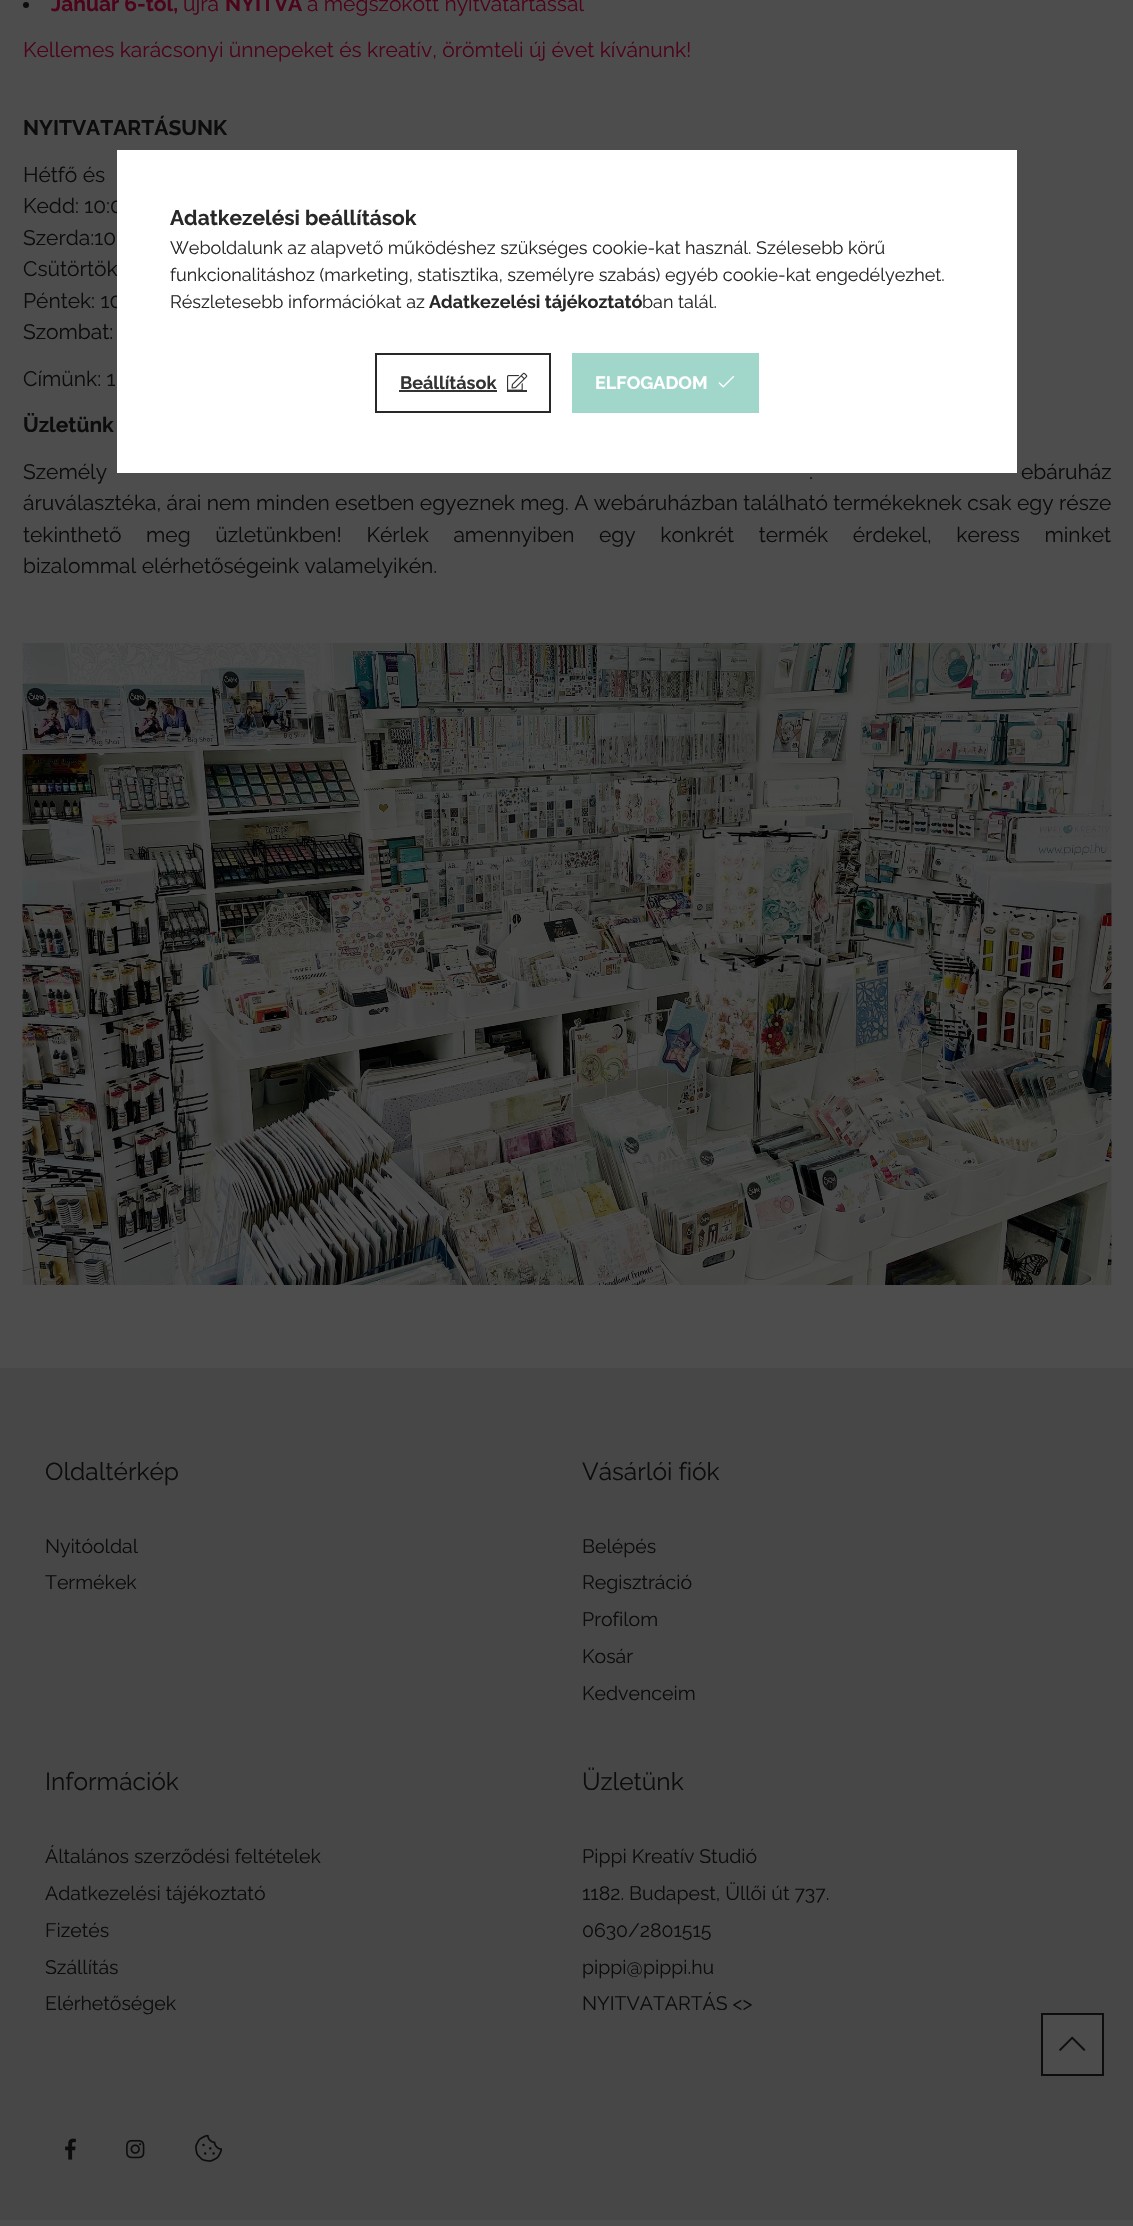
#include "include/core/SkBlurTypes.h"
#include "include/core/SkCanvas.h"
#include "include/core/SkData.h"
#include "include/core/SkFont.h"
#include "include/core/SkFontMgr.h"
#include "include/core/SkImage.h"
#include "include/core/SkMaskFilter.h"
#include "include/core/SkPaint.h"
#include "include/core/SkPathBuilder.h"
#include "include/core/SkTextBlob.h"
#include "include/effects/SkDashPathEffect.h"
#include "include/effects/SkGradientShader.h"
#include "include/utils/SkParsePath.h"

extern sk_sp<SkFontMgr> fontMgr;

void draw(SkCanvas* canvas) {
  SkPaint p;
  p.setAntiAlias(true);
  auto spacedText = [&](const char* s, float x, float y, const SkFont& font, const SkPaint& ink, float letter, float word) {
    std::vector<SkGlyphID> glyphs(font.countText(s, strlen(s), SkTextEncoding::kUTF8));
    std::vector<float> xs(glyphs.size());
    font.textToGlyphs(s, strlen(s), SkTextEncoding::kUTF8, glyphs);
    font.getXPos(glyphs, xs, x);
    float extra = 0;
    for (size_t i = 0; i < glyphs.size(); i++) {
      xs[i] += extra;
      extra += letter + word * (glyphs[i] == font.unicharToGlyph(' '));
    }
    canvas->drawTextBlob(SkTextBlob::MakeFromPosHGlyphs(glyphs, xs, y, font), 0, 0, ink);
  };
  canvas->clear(SkColorSetRGB(77, 77, 77));
  p.setColor(SkColorSetRGB(12, 12, 12));
  canvas->drawCircle(26, 5, 3, p);
  canvas->drawImageRect(SkImages::DeferredFromEncodedData(SkData::MakeFromFileName("images/1.png")), SkRect::MakeLTRB(22, 643, 1112, 1285), SkSamplingOptions());
  p.setColor(SkColorSetRGB(71, 71, 71));
  canvas->drawRect(SkRect::MakeLTRB(0, 1368, 1133, 2220), p);
  canvas->drawImageRect(SkImages::DeferredFromEncodedData(SkData::MakeFromFileName("images/2.png")), SkRect::MakeLTRB(65, 2138, 76, 2160), SkSamplingOptions());
  canvas->drawImageRect(SkImages::DeferredFromEncodedData(SkData::MakeFromFileName("images/3.png")), SkRect::MakeLTRB(126, 2139, 145, 2159), SkSamplingOptions());
  canvas->drawImageRect(SkImages::DeferredFromEncodedData(SkData::MakeFromFileName("images/4.png")), SkRect::MakeLTRB(195, 2134, 223, 2162), SkSamplingOptions());
  p.setColor(SkColorSetRGB(76, 76, 76));
  canvas->drawRect(SkRect::MakeLTRB(1042, 2014, 1103, 2075), p);
  p.setStyle(SkPaint::kStroke_Style);
  p.setStrokeWidth(2);
  p.setColor(SkColorSetRGB(12, 12, 12));
  canvas->drawRect(SkRect::MakeLTRB(1042, 2014, 1103, 2075), p);
  canvas->drawImageRect(SkImages::DeferredFromEncodedData(SkData::MakeFromFileName("images/7.png")), SkRect::MakeLTRB(1059, 2036, 1086, 2051), SkSamplingOptions());
  SkFont font1(fontMgr->matchFamilyStyle("Raleway", SkFontStyle::Bold()), 21);
  font1.setSubpixel(true);
  p.setStyle(SkPaint::kFill_Style);
  p.setColor(SkColorSetRGB(75, 4, 25));
  canvas->drawString("Január 6-tól,", 51, 11, font1, p);
  SkFont font2(fontMgr->matchFamilyStyle("Raleway", SkFontStyle::Normal()), 21);
  font2.setSubpixel(true);
  canvas->drawString("újra", 183, 11, font2, p);
  canvas->drawString("NYITVA", 225, 11, font1, p);
  canvas->drawString("a megszokott nyitvatartással", 307, 11, font2, p);
  canvas->drawString("Kellemes karácsonyi ünnepeket és kreatív, örömteli új évet kívánunk!", 23, 57, font2, p);
  p.setColor(SkColorSetRGB(12, 12, 12));
  canvas->drawString("NYITVATARTÁSUNK", 23, 135, font1, p);
  canvas->drawString("Hétfő és", 23, 182, font2, p);
  canvas->drawString("Kedd: 10:0", 23, 213, font2, p);
  canvas->drawString("Szerda:10", 23, 245, font2, p);
  canvas->drawString("Csütörtök", 23, 276, font2, p);
  canvas->drawString("Péntek: 10", 23, 308, font2, p);
  canvas->drawString("Szombat:", 23, 339, font2, p);
  canvas->drawString("Címünk: 1", 23, 386, font2, p);
  canvas->drawString("Üzletünk", 23, 432, font1, p);
  spacedText("Személy", 23, 479, font2, p, 0, 12);
  spacedText(".", 809, 479, font2, p, 0, 12);
  spacedText("ebáruház", 1021, 479, font2, p, 0, 12);
  canvas->drawString("áruválasztéka, árai nem minden esetben egyeznek meg. A webáruházban található termékeknek csak egy része", 23, 510, font2, p);
  spacedText("tekinthető meg üzletünkben! Kérlek amennyiben egy konkrét termék érdekel, keress minket", 23, 542, font2, p, 0, 19.25f);
  canvas->drawString("bizalommal elérhetőségeink valamelyikén.", 23, 573, font2, p);
  SkFont font3(fontMgr->matchFamilyStyle("Raleway", SkFontStyle::Normal()), 24.5f);
  font3.setSubpixel(true);
  canvas->drawString("Oldaltérkép", 45, 1480, font3, p);
  SkFont font4(fontMgr->matchFamilyStyle("Raleway", SkFontStyle::Normal()), 19.5f);
  font4.setSubpixel(true);
  canvas->drawString("Nyitóoldal", 45, 1553, font4, p);
  canvas->drawString("Termékek", 45, 1589, font4, p);
  canvas->drawString("Vásárlói fiók", 582, 1480, font3, p);
  canvas->drawString("Belépés", 582, 1553, font4, p);
  canvas->drawString("Regisztráció", 582, 1589, font4, p);
  canvas->drawString("Profilom", 582, 1626, font4, p);
  canvas->drawString("Kosár", 582, 1663, font4, p);
  canvas->drawString("Kedvenceim", 582, 1700, font4, p);
  canvas->drawString("Információk", 45, 1790, font3, p);
  canvas->drawString("Általános szerződési feltételek", 45, 1863, font4, p);
  canvas->drawString("Adatkezelési tájékoztató", 45, 1900, font4, p);
  canvas->drawString("Fizetés", 45, 1937, font4, p);
  canvas->drawString("Szállítás", 45, 1974, font4, p);
  canvas->drawString("Elérhetőségek", 45, 2010, font4, p);
  canvas->drawString("Üzletünk", 582, 1790, font3, p);
  canvas->drawString("Pippi Kreatív Studió", 582, 1863, font4, p);
  canvas->drawString("1182. Budapest, Üllői út 737.", 582, 1900, font4, p);
  canvas->drawString("0630/2801515", 582, 1937, font4, p);
  canvas->drawString("pippi@pippi.hu", 582, 1974, font4, p);
  canvas->drawString("NYITVATARTÁS <>", 582, 2010, font4, p);
  p.setColor(SK_ColorWHITE);
  canvas->drawRect(SkRect::MakeLTRB(117, 150, 1017, 473), p);
  p.setColor(SkColorSetRGB(40, 40, 40));
  canvas->drawString("Adatkezelési beállítások", 170, 225, font1, p);
  SkFont font5(fontMgr->matchFamilyStyle("Raleway", SkFontStyle::Normal()), 18);
  font5.setSubpixel(true);
  canvas->drawString("Weboldalunk az alapvető működéshez szükséges cookie-kat használ. Szélesebb körű", 170, 254, font5, p);
  canvas->drawString("funkcionalitáshoz (marketing, statisztika, személyre szabás) egyéb cookie-kat engedélyezhet.", 170, 281, font5, p);
  canvas->drawString("Részletesebb információkat az", 170, 308, font5, p);
  SkFont font6(fontMgr->matchFamilyStyle("Raleway", SkFontStyle::Bold()), 18);
  font6.setSubpixel(true);
  canvas->drawString("Adatkezelési tájékoztató", 429, 308, font6, p);
  canvas->drawString("ban talál.", 642, 308, font5, p);
  p.setStyle(SkPaint::kStroke_Style);
  canvas->drawRect(SkRect::MakeLTRB(376, 354, 550, 412), p);
  p.setStyle(SkPaint::kFill_Style);
  p.setColor(SkColorSetRGB(51, 51, 51));
  canvas->drawString("Beállítások", 400, 389, font6, p);
  canvas->drawRect(SkRect::MakeLTRB(399, 390, 497, 392), p);
  canvas->drawImageRect(SkImages::DeferredFromEncodedData(SkData::MakeFromFileName("images/5.png")), SkRect::MakeLTRB(507, 372, 528, 390), SkSamplingOptions());
  canvas->drawRect(SkRect::MakeLTRB(507, 390, 527, 392), p);
  p.setColor(SkColorSetRGB(161, 215, 202));
  canvas->drawRect(SkRect::MakeLTRB(572, 353, 759, 413), p);
  p.setColor(SK_ColorWHITE);
  canvas->drawString("ELFOGADOM", 595, 389, font6, p);
  canvas->drawImageRect(SkImages::DeferredFromEncodedData(SkData::MakeFromFileName("images/6.png")), SkRect::MakeLTRB(718, 375, 735, 388), SkSamplingOptions());
}
